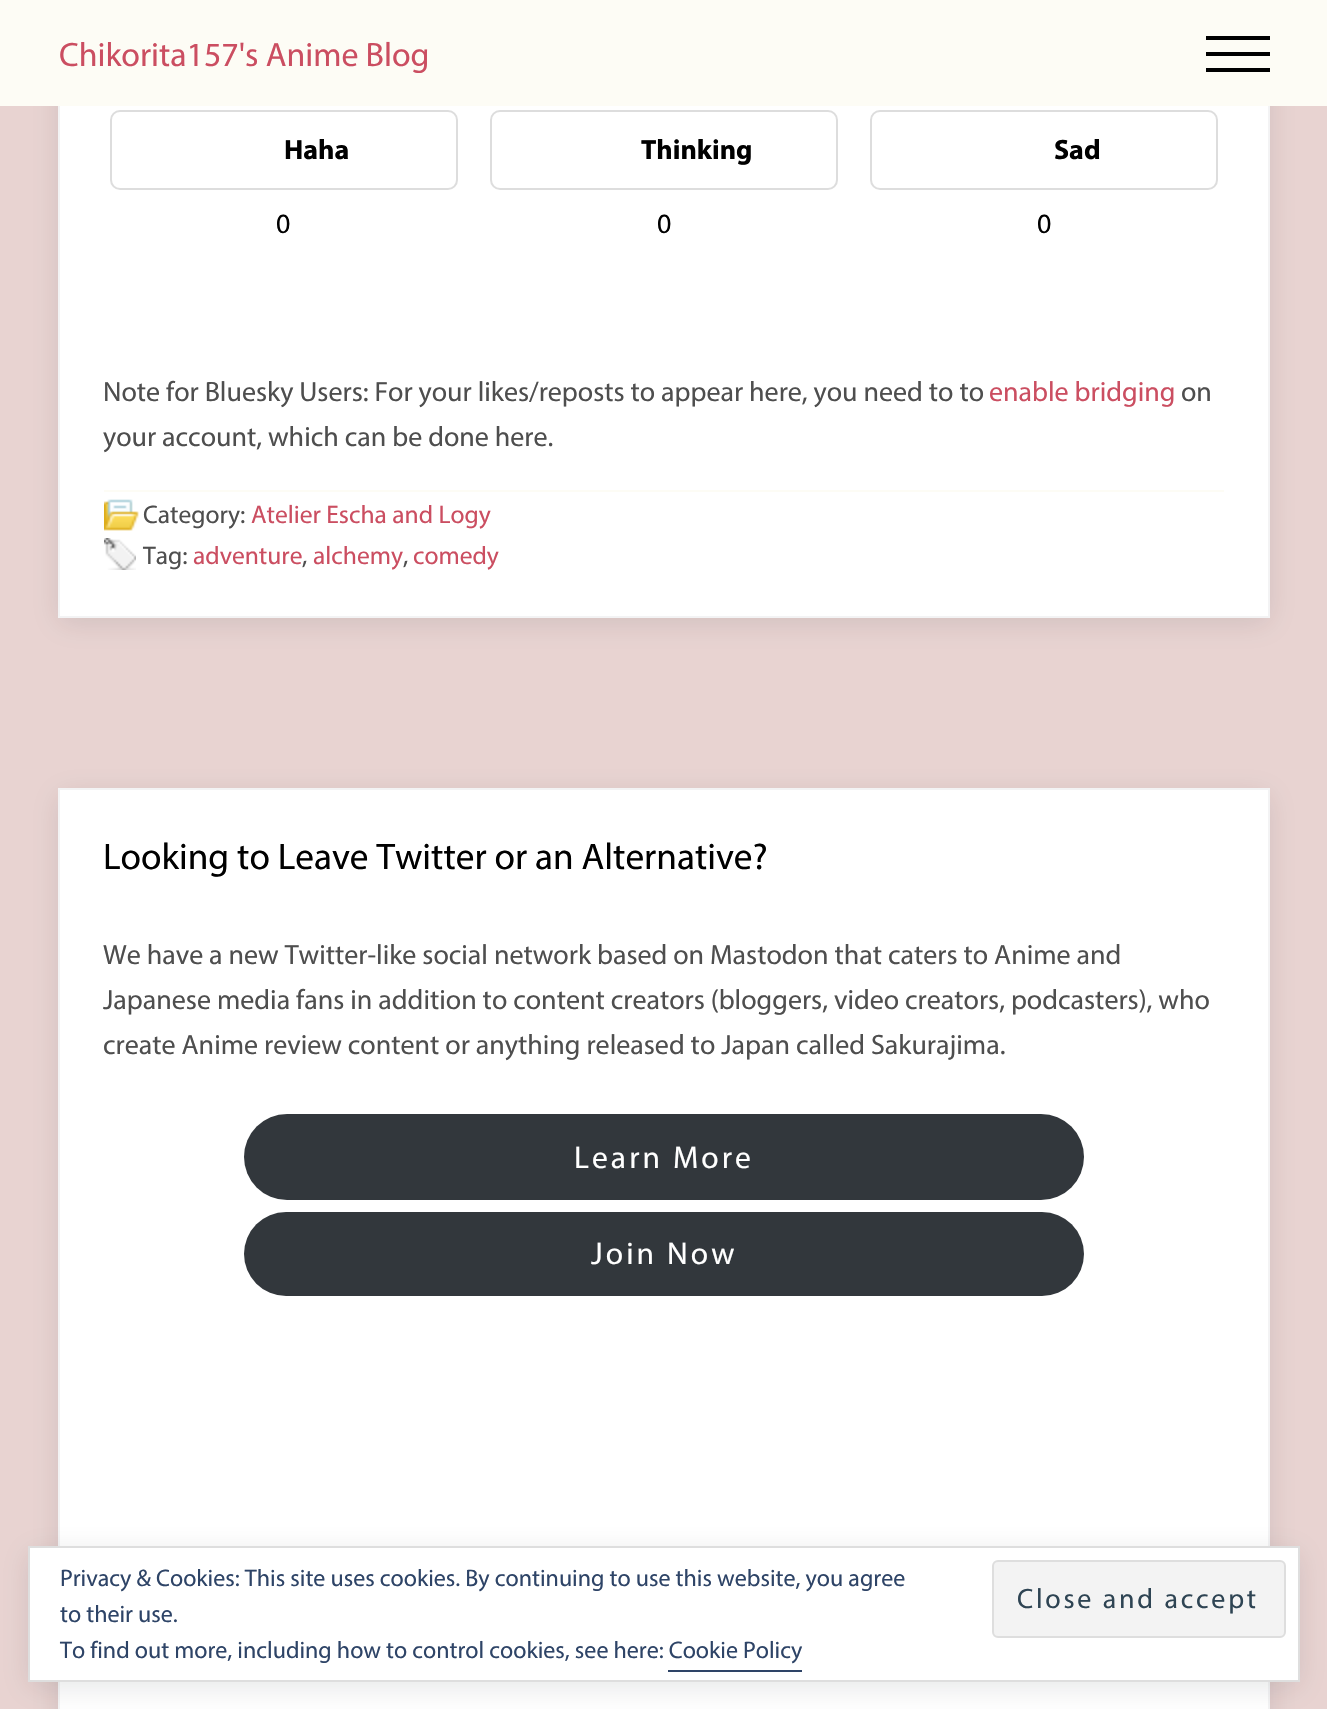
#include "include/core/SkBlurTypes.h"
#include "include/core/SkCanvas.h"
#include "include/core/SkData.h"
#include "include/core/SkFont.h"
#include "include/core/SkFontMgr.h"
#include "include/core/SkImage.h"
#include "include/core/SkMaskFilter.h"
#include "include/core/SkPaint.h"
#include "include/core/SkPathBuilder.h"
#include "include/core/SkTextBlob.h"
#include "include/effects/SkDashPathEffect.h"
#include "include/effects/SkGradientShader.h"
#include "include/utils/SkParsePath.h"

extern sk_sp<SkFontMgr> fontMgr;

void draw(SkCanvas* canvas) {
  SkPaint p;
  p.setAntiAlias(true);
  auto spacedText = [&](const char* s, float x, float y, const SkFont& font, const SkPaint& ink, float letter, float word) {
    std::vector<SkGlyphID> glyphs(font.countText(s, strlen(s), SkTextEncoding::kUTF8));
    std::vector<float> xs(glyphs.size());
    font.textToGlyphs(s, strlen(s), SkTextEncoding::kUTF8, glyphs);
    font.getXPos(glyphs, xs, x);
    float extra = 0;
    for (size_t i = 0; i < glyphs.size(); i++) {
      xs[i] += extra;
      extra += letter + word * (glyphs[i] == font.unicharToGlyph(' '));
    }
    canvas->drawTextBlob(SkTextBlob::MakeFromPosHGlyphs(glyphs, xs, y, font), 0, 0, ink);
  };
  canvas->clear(SkColorSetRGB(232, 211, 209));
  p.setColor(SkColorSetARGB(26, 10, 20, 30));
  p.setMaskFilter(SkMaskFilter::MakeBlur(kNormal_SkBlurStyle, 14));
  canvas->drawRect(SkRect::MakeLTRB(58, -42, 1270, 624), p);
  p.setMaskFilter(nullptr);
  p.setColor(SK_ColorWHITE);
  canvas->drawRect(SkRect::MakeLTRB(60, 106, 1268, 616), p);
  p.setStyle(SkPaint::kStroke_Style);
  p.setStrokeWidth(2);
  p.setColor(SkColorSetRGB(243, 243, 244));
  canvas->drawRect(SkRect::MakeLTRB(59, -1, 1269, 617), p);
  p.setStyle(SkPaint::kFill_Style);
  p.setColor(SkColorSetRGB(253, 252, 245));
  canvas->drawRect(SkRect::MakeLTRB(0, 0, 1327, 106), p);
  p.setColor(SK_ColorBLACK);
  canvas->drawRect(SkRect::MakeLTRB(1206, 52, 1270, 56), p);
  canvas->drawRect(SkRect::MakeLTRB(1206, 36, 1270, 40), p);
  canvas->drawRect(SkRect::MakeLTRB(1206, 68, 1270, 72), p);
  p.setStyle(SkPaint::kStroke_Style);
  p.setColor(SkColorSetRGB(221, 221, 221));
  canvas->drawRoundRect(SkRect::MakeLTRB(111, 111, 457, 189), 9, 9, p);
  canvas->drawRoundRect(SkRect::MakeLTRB(491, 111, 837, 189), 9, 9, p);
  canvas->drawRoundRect(SkRect::MakeLTRB(871, 111, 1217, 189), 9, 9, p);
  p.setStyle(SkPaint::kFill_Style);
  p.setColor(SkColorSetRGB(253, 252, 245));
  canvas->drawRect(SkRect::MakeLTRB(104, 490, 1224, 492), p);
  canvas->drawImageRect(SkImages::DeferredFromEncodedData(SkData::MakeFromFileName("images/1.png")), SkRect::MakeLTRB(104, 499, 139, 531), SkSamplingOptions());
  canvas->drawImageRect(SkImages::DeferredFromEncodedData(SkData::MakeFromFileName("images/2.png")), SkRect::MakeLTRB(104, 538, 136, 570), SkSamplingOptions());
  p.setColor(SkColorSetARGB(26, 10, 20, 30));
  p.setMaskFilter(SkMaskFilter::MakeBlur(kNormal_SkBlurStyle, 14));
  canvas->drawRect(SkRect::MakeLTRB(58, 794, 1270, 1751), p);
  p.setMaskFilter(nullptr);
  p.setColor(SK_ColorWHITE);
  canvas->drawRect(SkRect::MakeLTRB(59, 789, 1269, 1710), p);
  p.setStyle(SkPaint::kStroke_Style);
  p.setColor(SkColorSetRGB(243, 243, 244));
  canvas->drawRect(SkRect::MakeLTRB(59, 789, 1269, 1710), p);
  p.setStyle(SkPaint::kFill_Style);
  p.setColor(SkColorSetRGB(50, 55, 60));
  canvas->drawRoundRect(SkRect::MakeLTRB(244, 1114, 1084, 1200), 43, 43, p);
  canvas->drawRoundRect(SkRect::MakeLTRB(244, 1212, 1084, 1296), 42, 42, p);
  p.setColor(SkColorSetARGB(26, 10, 20, 30));
  p.setMaskFilter(SkMaskFilter::MakeBlur(kNormal_SkBlurStyle, 14));
  canvas->drawRect(SkRect::MakeLTRB(28, 1552, 1300, 1688), p);
  p.setMaskFilter(nullptr);
  p.setColor(SK_ColorWHITE);
  canvas->drawRect(SkRect::MakeLTRB(29, 1547, 1299, 1681), p);
  p.setStyle(SkPaint::kStroke_Style);
  p.setColor(SkColorSetRGB(222, 222, 222));
  canvas->drawRect(SkRect::MakeLTRB(29, 1547, 1299, 1681), p);
  p.setStyle(SkPaint::kFill_Style);
  p.setColor(SkColorSetRGB(243, 243, 243));
  canvas->drawRoundRect(SkRect::MakeLTRB(993, 1561, 1285, 1637), 5, 5, p);
  p.setStyle(SkPaint::kStroke_Style);
  p.setColor(SkColorSetRGB(222, 222, 222));
  canvas->drawRoundRect(SkRect::MakeLTRB(993, 1561, 1285, 1637), 5, 5, p);
  p.setStyle(SkPaint::kFill_Style);
  p.setColor(SkColorSetRGB(46, 68, 103));
  canvas->drawRect(SkRect::MakeLTRB(668, 1670, 802, 1672), p);
  SkFont font1(fontMgr->matchFamilyStyle("Myriad", SkFontStyle::Normal()), 33.9f);
  font1.setSubpixel(true);
  p.setColor(SkColorSetRGB(203, 78, 97));
  canvas->drawString("Chikorita157's Anime Blog", 59, 66, font1, p);
  SkFont font2(fontMgr->matchFamilyStyle("Myriad", SkFontStyle::Bold()), 28);
  font2.setSubpixel(true);
  p.setColor(SK_ColorBLACK);
  canvas->drawString("Haha", 284, 159, font2, p);
  SkFont font3(fontMgr->matchFamilyStyle("Myriad", SkFontStyle::Normal()), 28);
  font3.setSubpixel(true);
  canvas->drawString("0", 276, 233, font3, p);
  canvas->drawString("Thinking", 641, 159, font2, p);
  canvas->drawString("0", 657, 233, font3, p);
  canvas->drawString("Sad", 1054, 159, font2, p);
  canvas->drawString("0", 1037, 233, font3, p);
  p.setColor(SkColorSetRGB(78, 78, 78));
  canvas->drawString("Note for Bluesky Users: For your likes/reposts to appear here, you need to to", 103, 401, font3, p);
  p.setColor(SkColorSetRGB(203, 78, 97));
  canvas->drawString("enable bridging", 989, 401, font3, p);
  p.setColor(SkColorSetRGB(78, 78, 78));
  canvas->drawString("on", 1181, 401, font3, p);
  canvas->drawString("your account, which can be done here.", 103, 446, font3, p);
  SkFont font4(fontMgr->matchFamilyStyle("Myriad", SkFontStyle::Normal()), 25.5f);
  font4.setSubpixel(true);
  canvas->drawString("Category:", 143, 523, font4, p);
  p.setColor(SkColorSetRGB(203, 78, 97));
  canvas->drawString("Atelier Escha and Logy", 251, 523, font4, p);
  p.setColor(SkColorSetRGB(78, 78, 78));
  canvas->drawString("Tag:", 143, 564, font4, p);
  p.setColor(SkColorSetRGB(203, 78, 97));
  canvas->drawString("adventure", 193, 564, font4, p);
  p.setColor(SkColorSetRGB(78, 78, 78));
  canvas->drawString(",", 302, 564, font4, p);
  p.setColor(SkColorSetRGB(203, 78, 97));
  canvas->drawString("alchemy", 313, 564, font4, p);
  p.setColor(SkColorSetRGB(78, 78, 78));
  canvas->drawString(",", 403, 564, font4, p);
  p.setColor(SkColorSetRGB(203, 78, 97));
  canvas->drawString("comedy", 413, 564, font4, p);
  SkFont font5(fontMgr->matchFamilyStyle("Myriad", SkFontStyle::Normal()), 37.25f);
  font5.setSubpixel(true);
  p.setColor(SK_ColorBLACK);
  canvas->drawString("Looking to Leave Twitter or an Alternative?", 103, 869, font5, p);
  p.setColor(SkColorSetRGB(78, 78, 78));
  canvas->drawString("We have a new Twitter-like social network based on Mastodon that caters to Anime and", 103, 964, font3, p);
  canvas->drawString("Japanese media fans in addition to content creators (bloggers, video creators, podcasters), who", 103, 1009, font3, p);
  canvas->drawString("create Anime review content or anything released to Japan called Sakurajima.", 103, 1054, font3, p);
  SkFont font6(fontMgr->matchFamilyStyle("Myriad", SkFontStyle::Normal()), 31.5f);
  font6.setSubpixel(true);
  p.setColor(SK_ColorWHITE);
  spacedText("Learn More", 574, 1168, font6, p, 3.1f, 0);
  spacedText("Join Now", 591, 1264, font6, p, 3.1f, 0);
  SkFont font7(fontMgr->matchFamilyStyle("Myriad", SkFontStyle::Normal()), 24);
  font7.setSubpixel(true);
  p.setColor(SkColorSetRGB(46, 68, 103));
  canvas->drawString("Privacy & Cookies: This site uses cookies. By continuing to use this website, you agree", 60, 1586, font7, p);
  canvas->drawString("to their use.", 60, 1622, font7, p);
  p.setColor(SkColorSetRGB(46, 68, 83));
  spacedText("Close and accept", 1017, 1608, font3, p, 2.75f, 0);
  p.setColor(SkColorSetRGB(46, 68, 103));
  canvas->drawString("To find out more, including how to control cookies, see here: Cookie Policy", 60, 1658, font7, p);
}
